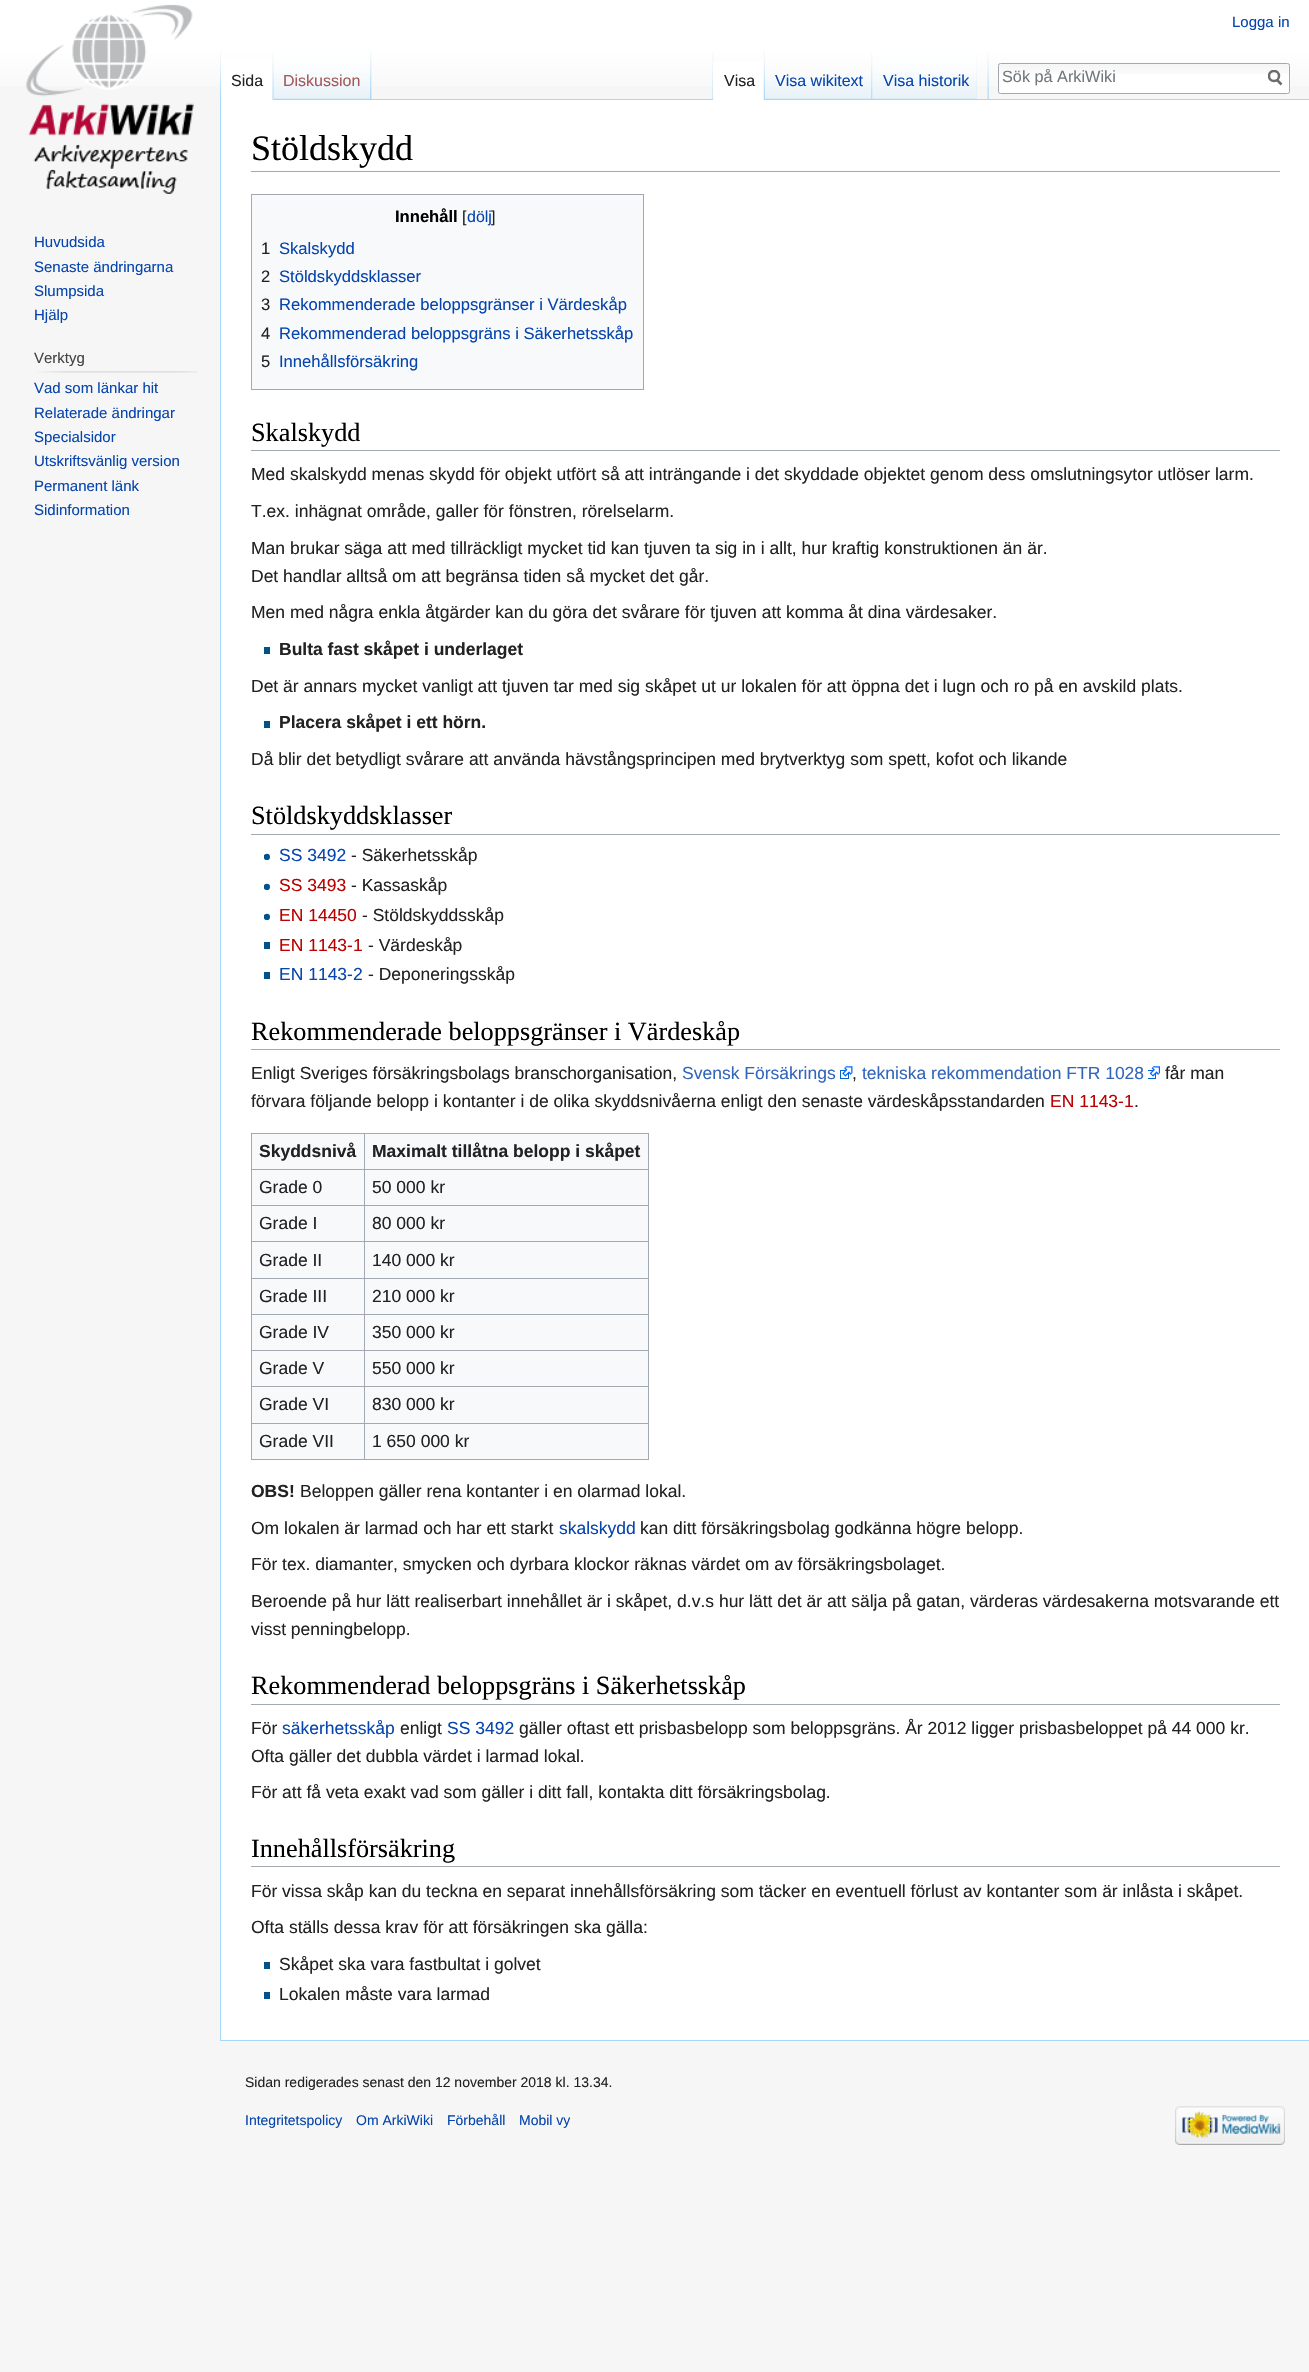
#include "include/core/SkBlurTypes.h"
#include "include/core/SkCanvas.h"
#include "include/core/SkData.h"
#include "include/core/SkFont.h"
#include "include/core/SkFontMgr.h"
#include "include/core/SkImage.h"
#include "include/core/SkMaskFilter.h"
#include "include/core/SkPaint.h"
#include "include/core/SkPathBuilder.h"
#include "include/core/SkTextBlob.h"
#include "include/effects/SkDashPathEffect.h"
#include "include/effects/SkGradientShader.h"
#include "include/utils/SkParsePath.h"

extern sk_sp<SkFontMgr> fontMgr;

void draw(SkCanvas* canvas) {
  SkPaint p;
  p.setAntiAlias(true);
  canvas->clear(SkColorSetRGB(246, 246, 246));
  {
    const SkColor colors[] = {SK_ColorWHITE, SkColorSetRGB(246, 246, 246)};
    const float stops[] = {0.5f, 1};
    const SkPoint ends[] = {{655, 0}, {655, 100}};
    p.setShader(SkGradientShader::MakeLinear(ends, colors, stops, 2, SkTileMode::kClamp));
    p.setAlpha(255);
  }
  canvas->drawRect(SkRect::MakeLTRB(0, 0, 1309, 86), p);
  canvas->drawImageRect(SkImages::DeferredFromEncodedData(SkData::MakeFromFileName("images/1.png")), SkRect::MakeLTRB(220, 50, 222, 99), SkSamplingOptions());
  canvas->drawImageRect(SkImages::DeferredFromEncodedData(SkData::MakeFromFileName("images/2.png")), SkRect::MakeLTRB(371, 50, 372, 99), SkSamplingOptions());
  p.setShader(nullptr);
  p.setColor(SK_ColorWHITE);
  canvas->drawRect(SkRect::MakeLTRB(221, 58, 274, 100), p);
  canvas->drawImageRect(SkImages::DeferredFromEncodedData(SkData::MakeFromFileName("images/3.png")), SkRect::MakeLTRB(272, 52, 274, 100), SkSamplingOptions());
  canvas->drawImageRect(SkImages::DeferredFromEncodedData(SkData::MakeFromFileName("images/4.png")), SkRect::MakeLTRB(273, 50, 371, 100), SkSamplingOptions());
  canvas->drawImageRect(SkImages::DeferredFromEncodedData(SkData::MakeFromFileName("images/5.png")), SkRect::MakeLTRB(370, 50, 372, 99), SkSamplingOptions());
  canvas->drawImageRect(SkImages::DeferredFromEncodedData(SkData::MakeFromFileName("images/6.png")), SkRect::MakeLTRB(712, 52, 714, 99), SkSamplingOptions());
  canvas->drawImageRect(SkImages::DeferredFromEncodedData(SkData::MakeFromFileName("images/2.png")), SkRect::MakeLTRB(976, 50, 977, 99), SkSamplingOptions());
  p.setColor(SkColorSetRGB(167, 215, 249));
  canvas->drawRect(SkRect::MakeLTRB(371, 99, 1309, 100), p);
  p.setColor(SK_ColorWHITE);
  canvas->drawRect(SkRect::MakeLTRB(713, 61, 764, 100), p);
  canvas->drawImageRect(SkImages::DeferredFromEncodedData(SkData::MakeFromFileName("images/7.png")), SkRect::MakeLTRB(763, 50, 765, 100), SkSamplingOptions());
  canvas->drawImageRect(SkImages::DeferredFromEncodedData(SkData::MakeFromFileName("images/8.png")), SkRect::MakeLTRB(765, 77, 873, 99), SkSamplingOptions());
  canvas->drawImageRect(SkImages::DeferredFromEncodedData(SkData::MakeFromFileName("images/9.png")), SkRect::MakeLTRB(871, 52, 873, 99), SkSamplingOptions());
  canvas->drawImageRect(SkImages::DeferredFromEncodedData(SkData::MakeFromFileName("images/10.png")), SkRect::MakeLTRB(872, 50, 976, 99), SkSamplingOptions());
  canvas->drawImageRect(SkImages::DeferredFromEncodedData(SkData::MakeFromFileName("images/6.png")), SkRect::MakeLTRB(987, 52, 989, 99), SkSamplingOptions());
  canvas->drawRoundRect(SkRect::MakeLTRB(998, 63, 1290, 94), 2.5f, 2.5f, p);
  canvas->drawImageRect(SkImages::DeferredFromEncodedData(SkData::MakeFromFileName("images/11.png")), SkRect::MakeLTRB(998, 64, 1290, 74), SkSamplingOptions());
  p.setStyle(SkPaint::kStroke_Style);
  p.setStrokeWidth(1);
  p.setColor(SkColorSetRGB(162, 169, 177));
  canvas->drawRoundRect(SkRect::MakeLTRB(998.5f, 63.5f, 1289.5f, 93.5f), 2, 2, p);
  p.setStrokeWidth(2.5f);
  p.setColor(SkColorSetRGB(108, 108, 108));
  canvas->drawPath(SkPathBuilder().moveTo(1281.5f, 84.5f).lineTo(1276.5f, 79.5f).detach(), p);
  canvas->save();
  canvas->clipRect(SkRect::MakeLTRB(1268, 70, 1283, 86));
  canvas->drawCircle(1274, 76, 5, p);
  canvas->restore();
  canvas->drawImageRect(SkImages::DeferredFromEncodedData(SkData::MakeFromFileName("images/12.png")), SkRect::MakeLTRB(26, 4, 194, 194), SkSamplingOptions());
  canvas->drawImageRect(SkImages::DeferredFromEncodedData(SkData::MakeFromFileName("images/13.png")), SkRect::MakeLTRB(37, 371, 198, 373), SkSamplingOptions());
  p.setStyle(SkPaint::kFill_Style);
  p.setColor(SK_ColorWHITE);
  canvas->drawRect(SkRect::MakeLTRB(221, 100, 1309, 2040), p);
  p.setColor(SkColorSetRGB(167, 215, 249));
  canvas->drawRect(SkRect::MakeLTRB(220, 2040, 1309, 2041), p);
  canvas->drawRect(SkRect::MakeLTRB(220, 99, 221, 2041), p);
  p.setColor(SkColorSetRGB(162, 169, 177));
  canvas->drawRect(SkRect::MakeLTRB(251, 171, 1280, 172), p);
  p.setColor(SkColorSetRGB(248, 249, 250));
  canvas->drawRect(SkRect::MakeLTRB(251.5f, 194.5f, 643.5f, 389.5f), p);
  p.setStyle(SkPaint::kStroke_Style);
  p.setStrokeWidth(1);
  p.setColor(SkColorSetRGB(162, 169, 177));
  canvas->drawRect(SkRect::MakeLTRB(251.5f, 194.5f, 643.5f, 389.5f), p);
  p.setStyle(SkPaint::kFill_Style);
  canvas->drawRect(SkRect::MakeLTRB(251, 450, 1280, 451), p);
  p.setColor(SkColorSetRGB(0, 82, 140));
  canvas->drawRect(SkRect::MakeLTRB(264, 647, 270, 654), p);
  canvas->drawRect(SkRect::MakeLTRB(264, 721, 270, 728), p);
  p.setColor(SkColorSetRGB(162, 169, 177));
  canvas->drawRect(SkRect::MakeLTRB(251, 834, 1280, 835), p);
  canvas->drawImageRect(SkImages::DeferredFromEncodedData(SkData::MakeFromFileName("images/14.png")), SkRect::MakeLTRB(264, 853, 270, 860), SkSamplingOptions());
  canvas->drawImageRect(SkImages::DeferredFromEncodedData(SkData::MakeFromFileName("images/14.png")), SkRect::MakeLTRB(264, 883, 270, 890), SkSamplingOptions());
  canvas->drawImageRect(SkImages::DeferredFromEncodedData(SkData::MakeFromFileName("images/14.png")), SkRect::MakeLTRB(264, 913, 270, 920), SkSamplingOptions());
  p.setColor(SkColorSetRGB(0, 82, 140));
  canvas->drawRect(SkRect::MakeLTRB(264, 942, 270, 949), p);
  canvas->drawRect(SkRect::MakeLTRB(264, 972, 270, 979), p);
  p.setColor(SkColorSetRGB(162, 169, 177));
  canvas->drawRect(SkRect::MakeLTRB(251, 1049, 1280, 1050), p);
  canvas->drawImageRect(SkImages::DeferredFromEncodedData(SkData::MakeFromFileName("images/15.png")), SkRect::MakeLTRB(840, 1066, 853, 1079), SkSamplingOptions());
  canvas->drawImageRect(SkImages::DeferredFromEncodedData(SkData::MakeFromFileName("images/16.png")), SkRect::MakeLTRB(1148, 1066, 1160, 1079), SkSamplingOptions());
  p.setColor(SkColorSetRGB(248, 249, 250));
  canvas->drawRect(SkRect::MakeLTRB(252, 1134, 648, 1459), p);
  p.setColor(SkColorSetRGB(162, 169, 177));
  canvas->drawRect(SkRect::MakeLTRB(251, 1133, 649, 1134), p);
  canvas->drawRect(SkRect::MakeLTRB(648, 1133, 649, 1460), p);
  canvas->drawRect(SkRect::MakeLTRB(251, 1459, 649, 1460), p);
  canvas->drawRect(SkRect::MakeLTRB(251, 1133, 252, 1460), p);
  canvas->drawRect(SkRect::MakeLTRB(364, 1169, 649, 1170), p);
  canvas->drawRect(SkRect::MakeLTRB(364, 1205, 649, 1206), p);
  canvas->drawRect(SkRect::MakeLTRB(364, 1241, 649, 1242), p);
  canvas->drawRect(SkRect::MakeLTRB(364, 1278, 649, 1279), p);
  canvas->drawRect(SkRect::MakeLTRB(364, 1314, 649, 1315), p);
  canvas->drawRect(SkRect::MakeLTRB(364, 1350, 649, 1351), p);
  canvas->drawRect(SkRect::MakeLTRB(364, 1386, 649, 1387), p);
  canvas->drawRect(SkRect::MakeLTRB(364, 1423, 649, 1424), p);
  canvas->drawRect(SkRect::MakeLTRB(364, 1423, 365, 1460), p);
  canvas->drawRect(SkRect::MakeLTRB(251, 1423, 365, 1424), p);
  canvas->drawRect(SkRect::MakeLTRB(364, 1386, 365, 1424), p);
  canvas->drawRect(SkRect::MakeLTRB(251, 1386, 365, 1387), p);
  canvas->drawRect(SkRect::MakeLTRB(364, 1350, 365, 1388), p);
  canvas->drawRect(SkRect::MakeLTRB(251, 1350, 365, 1351), p);
  canvas->drawRect(SkRect::MakeLTRB(364, 1314, 365, 1351), p);
  canvas->drawRect(SkRect::MakeLTRB(251, 1314, 365, 1315), p);
  canvas->drawRect(SkRect::MakeLTRB(364, 1278, 365, 1315), p);
  canvas->drawRect(SkRect::MakeLTRB(251, 1278, 365, 1279), p);
  canvas->drawRect(SkRect::MakeLTRB(364, 1241, 365, 1279), p);
  canvas->drawRect(SkRect::MakeLTRB(251, 1241, 365, 1242), p);
  canvas->drawRect(SkRect::MakeLTRB(364, 1205, 365, 1243), p);
  canvas->drawRect(SkRect::MakeLTRB(251, 1205, 365, 1206), p);
  canvas->drawRect(SkRect::MakeLTRB(364, 1169, 365, 1206), p);
  canvas->drawRect(SkRect::MakeLTRB(251, 1169, 365, 1170), p);
  canvas->drawRect(SkRect::MakeLTRB(364, 1133, 365, 1170), p);
  canvas->drawRect(SkRect::MakeLTRB(251, 1704, 1280, 1705), p);
  canvas->drawRect(SkRect::MakeLTRB(251, 1866, 1280, 1867), p);
  p.setColor(SkColorSetRGB(0, 82, 140));
  canvas->drawRect(SkRect::MakeLTRB(264, 1962, 270, 1969), p);
  canvas->drawRect(SkRect::MakeLTRB(264, 1992, 270, 1999), p);
  canvas->drawImageRect(SkImages::DeferredFromEncodedData(SkData::MakeFromFileName("images/17.png")), SkRect::MakeLTRB(1175, 2106, 1285, 2145), SkSamplingOptions());
  SkFont font1(fontMgr->matchFamilyStyle("Liberation Sans", SkFontStyle::Normal()), 15);
  font1.setSubpixel(true);
  p.setColor(SkColorSetRGB(6, 69, 173));
  canvas->drawString("Logga in", 1232, 27, font1, p);
  SkFont font2(fontMgr->matchFamilyStyle("Liberation Sans", SkFontStyle::Normal()), 16);
  font2.setSubpixel(true);
  p.setColor(SkColorSetRGB(34, 34, 34));
  canvas->drawString("Sida", 231, 86, font2, p);
  p.setColor(SkColorSetRGB(165, 88, 88));
  canvas->drawString("Diskussion", 283, 86, font2, p);
  p.setColor(SkColorSetRGB(34, 34, 34));
  canvas->drawString("Visa", 724, 86, font2, p);
  p.setColor(SkColorSetRGB(6, 69, 173));
  canvas->drawString("Visa wikitext", 775, 86, font2, p);
  canvas->drawString("Visa historik", 883, 86, font2, p);
  SkFont font3(fontMgr->matchFamilyStyle("Liberation Sans", SkFontStyle::Normal()), 16.25f);
  font3.setSubpixel(true);
  p.setColor(SkColorSetRGB(114, 119, 125));
  canvas->drawString("Sök på ArkiWiki", 1002, 82, font3, p);
  p.setColor(SkColorSetRGB(6, 69, 173));
  canvas->drawString("Huvudsida", 34, 247, font1, p);
  canvas->drawString("Senaste ändringarna", 34, 272, font1, p);
  canvas->drawString("Slumpsida", 34, 296, font1, p);
  canvas->drawString("Hjälp", 34, 320, font1, p);
  p.setColor(SkColorSetRGB(68, 68, 68));
  canvas->drawString("Verktyg", 34, 363, font1, p);
  p.setColor(SkColorSetRGB(6, 69, 173));
  canvas->drawString("Vad som länkar hit", 34, 393, font1, p);
  canvas->drawString("Relaterade ändringar", 34, 418, font1, p);
  canvas->drawString("Specialsidor", 34, 442, font1, p);
  canvas->drawString("Utskriftsvänlig version", 34, 466, font1, p);
  canvas->drawString("Permanent länk", 34, 491, font1, p);
  canvas->drawString("Sidinformation", 34, 515, font1, p);
  SkFont font4(fontMgr->matchFamilyStyle("Liberation Serif", SkFontStyle::Normal()), 36);
  font4.setSubpixel(true);
  p.setColor(SK_ColorBLACK);
  canvas->drawString("Stöldskydd", 251, 160, font4, p);
  SkFont font5(fontMgr->matchFamilyStyle("Liberation Sans", SkFontStyle::Bold()), 16.6f);
  font5.setSubpixel(true);
  canvas->drawString("Innehåll", 395, 222, font5, p);
  p.setColor(SkColorSetRGB(34, 34, 34));
  canvas->drawString("[", 462, 222, font2, p);
  p.setColor(SkColorSetRGB(6, 69, 173));
  canvas->drawString("dölj", 467, 222, font2, p);
  p.setColor(SkColorSetRGB(34, 34, 34));
  canvas->drawString("]", 491, 222, font2, p);
  SkFont font6(fontMgr->matchFamilyStyle("Liberation Sans", SkFontStyle::Normal()), 16.6f);
  font6.setSubpixel(true);
  canvas->drawString("1", 261, 254, font6, p);
  p.setColor(SkColorSetRGB(6, 69, 173));
  canvas->drawString("Skalskydd", 279, 254, font6, p);
  p.setColor(SkColorSetRGB(34, 34, 34));
  canvas->drawString("2", 261, 282, font6, p);
  p.setColor(SkColorSetRGB(6, 69, 173));
  canvas->drawString("Stöldskyddsklasser", 279, 282, font6, p);
  p.setColor(SkColorSetRGB(34, 34, 34));
  canvas->drawString("3", 261, 310, font6, p);
  p.setColor(SkColorSetRGB(6, 69, 173));
  canvas->drawString("Rekommenderade beloppsgränser i Värdeskåp", 279, 310, font6, p);
  p.setColor(SkColorSetRGB(34, 34, 34));
  canvas->drawString("4", 261, 339, font6, p);
  p.setColor(SkColorSetRGB(6, 69, 173));
  canvas->drawString("Rekommenderad beloppsgräns i Säkerhetsskåp", 279, 339, font6, p);
  p.setColor(SkColorSetRGB(34, 34, 34));
  canvas->drawString("5", 261, 367, font6, p);
  p.setColor(SkColorSetRGB(6, 69, 173));
  canvas->drawString("Innehållsförsäkring", 279, 367, font6, p);
  SkFont font7(fontMgr->matchFamilyStyle("Liberation Serif", SkFontStyle::Normal()), 26.25f);
  font7.setSubpixel(true);
  p.setColor(SK_ColorBLACK);
  canvas->drawString("Skalskydd", 251, 441, font7, p);
  SkFont font8(fontMgr->matchFamilyStyle("Liberation Sans", SkFontStyle::Normal()), 17.5f);
  font8.setSubpixel(true);
  p.setColor(SkColorSetRGB(34, 34, 34));
  canvas->drawString("Med skalskydd menas skydd för objekt utfört så att inträngande i det skyddade objektet genom dess omslutningsytor utlöser larm.", 251, 480, font8, p);
  canvas->drawString("T.ex. inhägnat område, galler för fönstren, rörelselarm.", 251, 517, font8, p);
  canvas->drawString("Man brukar säga att med tillräckligt mycket tid kan tjuven ta sig in i allt, hur kraftig konstruktionen än är.", 251, 554, font8, p);
  canvas->drawString("Det handlar alltså om att begränsa tiden så mycket det går.", 251, 582, font8, p);
  canvas->drawString("Men med några enkla åtgärder kan du göra det svårare för tjuven att komma åt dina värdesaker.", 251, 618, font8, p);
  SkFont font9(fontMgr->matchFamilyStyle("Liberation Sans", SkFontStyle::Bold()), 17.5f);
  font9.setSubpixel(true);
  canvas->drawString("Bulta fast skåpet i underlaget", 279, 655, font9, p);
  canvas->drawString("Det är annars mycket vanligt att tjuven tar med sig skåpet ut ur lokalen för att öppna det i lugn och ro på en avskild plats.", 251, 692, font8, p);
  canvas->drawString("Placera skåpet i ett hörn.", 279, 728, font9, p);
  canvas->drawString("Då blir det betydligt svårare att använda hävstångsprincipen med brytverktyg som spett, kofot och likande", 251, 765, font8, p);
  p.setColor(SK_ColorBLACK);
  canvas->drawString("Stöldskyddsklasser", 251, 824, font7, p);
  p.setColor(SkColorSetRGB(6, 69, 173));
  canvas->drawString("SS 3492", 279, 861, font8, p);
  p.setColor(SkColorSetRGB(34, 34, 34));
  canvas->drawString("- Säkerhetsskåp", 351, 861, font8, p);
  p.setColor(SkColorSetRGB(186, 0, 0));
  canvas->drawString("SS 3493", 279, 891, font8, p);
  p.setColor(SkColorSetRGB(34, 34, 34));
  canvas->drawString("- Kassaskåp", 351, 891, font8, p);
  p.setColor(SkColorSetRGB(186, 0, 0));
  canvas->drawString("EN 14450", 279, 921, font8, p);
  p.setColor(SkColorSetRGB(34, 34, 34));
  canvas->drawString("- Stöldskyddsskåp", 362, 921, font8, p);
  p.setColor(SkColorSetRGB(186, 0, 0));
  canvas->drawString("EN 1143-1", 279, 951, font8, p);
  p.setColor(SkColorSetRGB(34, 34, 34));
  canvas->drawString("- Värdeskåp", 368, 951, font8, p);
  p.setColor(SkColorSetRGB(6, 69, 173));
  canvas->drawString("EN 1143-2", 279, 980, font8, p);
  p.setColor(SkColorSetRGB(34, 34, 34));
  canvas->drawString("- Deponeringsskåp", 368, 980, font8, p);
  p.setColor(SK_ColorBLACK);
  canvas->drawString("Rekommenderade beloppsgränser i Värdeskåp", 251, 1040, font7, p);
  p.setColor(SkColorSetRGB(34, 34, 34));
  canvas->drawString("Enligt Sveriges försäkringsbolags branschorganisation,", 251, 1079, font8, p);
  p.setColor(SkColorSetRGB(51, 102, 187));
  canvas->drawString("Svensk Försäkrings", 682, 1079, font8, p);
  canvas->drawString("tekniska rekommendation FTR 1028", 862, 1079, font8, p);
  p.setColor(SkColorSetRGB(34, 34, 34));
  canvas->drawString("får man", 1165, 1079, font8, p);
  canvas->drawString(",", 852, 1079, font8, p);
  canvas->drawString("förvara följande belopp i kontanter i de olika skyddsnivåerna enligt den senaste värdeskåpsstandarden", 251, 1107, font8, p);
  p.setColor(SkColorSetRGB(186, 0, 0));
  canvas->drawString("EN 1143-1", 1050, 1107, font8, p);
  p.setColor(SkColorSetRGB(34, 34, 34));
  canvas->drawString(".", 1134, 1107, font8, p);
  canvas->drawString("Skyddsnivå", 259, 1157, font9, p);
  canvas->drawString("Maximalt tillåtna belopp i skåpet", 372, 1157, font9, p);
  canvas->drawString("Grade 0", 259, 1193, font8, p);
  canvas->drawString("50 000 kr", 372, 1193, font8, p);
  canvas->drawString("Grade I", 259, 1229, font8, p);
  canvas->drawString("80 000 kr", 372, 1229, font8, p);
  canvas->drawString("Grade II", 259, 1266, font8, p);
  canvas->drawString("140 000 kr", 372, 1266, font8, p);
  canvas->drawString("Grade III", 259, 1302, font8, p);
  canvas->drawString("210 000 kr", 372, 1302, font8, p);
  canvas->drawString("Grade IV", 259, 1338, font8, p);
  canvas->drawString("350 000 kr", 372, 1338, font8, p);
  canvas->drawString("Grade V", 259, 1374, font8, p);
  canvas->drawString("550 000 kr", 372, 1374, font8, p);
  canvas->drawString("Grade VI", 259, 1410, font8, p);
  canvas->drawString("830 000 kr", 372, 1410, font8, p);
  canvas->drawString("Grade VII", 259, 1447, font8, p);
  canvas->drawString("1 650 000 kr", 372, 1447, font8, p);
  canvas->drawString("OBS!", 251, 1497, font9, p);
  canvas->drawString("Beloppen gäller rena kontanter i en olarmad lokal.", 300, 1497, font8, p);
  canvas->drawString("Om lokalen är larmad och har ett starkt", 251, 1534, font8, p);
  p.setColor(SkColorSetRGB(6, 69, 173));
  canvas->drawString("skalskydd", 559, 1534, font8, p);
  p.setColor(SkColorSetRGB(34, 34, 34));
  canvas->drawString("kan ditt försäkringsbolag godkänna högre belopp.", 640, 1534, font8, p);
  canvas->drawString("För tex. diamanter, smycken och dyrbara klockor räknas värdet om av försäkringsbolaget.", 251, 1570, font8, p);
  canvas->drawString("Beroende på hur lätt realiserbart innehållet är i skåpet, d.v.s hur lätt det är att sälja på gatan, värderas värdesakerna motsvarande ett", 251, 1607, font8, p);
  canvas->drawString("visst penningbelopp.", 251, 1635, font8, p);
  p.setColor(SK_ColorBLACK);
  canvas->drawString("Rekommenderad beloppsgräns i Säkerhetsskåp", 251, 1694, font7, p);
  p.setColor(SkColorSetRGB(34, 34, 34));
  canvas->drawString("För", 251, 1734, font8, p);
  p.setColor(SkColorSetRGB(6, 69, 173));
  canvas->drawString("säkerhetsskåp", 282, 1734, font8, p);
  p.setColor(SkColorSetRGB(34, 34, 34));
  canvas->drawString("enligt", 400, 1734, font8, p);
  p.setColor(SkColorSetRGB(6, 69, 173));
  canvas->drawString("SS 3492", 447, 1734, font8, p);
  p.setColor(SkColorSetRGB(34, 34, 34));
  canvas->drawString("gäller oftast ett prisbasbelopp som beloppsgräns. År 2012 ligger prisbasbeloppet på 44 000 kr.", 519, 1734, font8, p);
  canvas->drawString("Ofta gäller det dubbla värdet i larmad lokal.", 251, 1762, font8, p);
  canvas->drawString("För att få veta exakt vad som gäller i ditt fall, kontakta ditt försäkringsbolag.", 251, 1798, font8, p);
  p.setColor(SK_ColorBLACK);
  canvas->drawString("Innehållsförsäkring", 251, 1857, font7, p);
  p.setColor(SkColorSetRGB(34, 34, 34));
  canvas->drawString("För vissa skåp kan du teckna en separat innehållsförsäkring som täcker en eventuell förlust av kontanter som är inlåsta i skåpet.", 251, 1897, font8, p);
  canvas->drawString("Ofta ställs dessa krav för att försäkringen ska gälla:", 251, 1933, font8, p);
  canvas->drawString("Skåpet ska vara fastbultat i golvet", 279, 1970, font8, p);
  canvas->drawString("Lokalen måste vara larmad", 279, 2000, font8, p);
  SkFont font10(fontMgr->matchFamilyStyle("Liberation Sans", SkFontStyle::Normal()), 14);
  font10.setSubpixel(true);
  canvas->drawString("Sidan redigerades senast den 12 november 2018 kl. 13.34.", 245, 2087, font10, p);
  p.setColor(SkColorSetRGB(6, 69, 173));
  canvas->drawString("Integritetspolicy", 245, 2125, font10, p);
  canvas->drawString("Om ArkiWiki", 356, 2125, font10, p);
  canvas->drawString("Förbehåll", 447, 2125, font10, p);
  canvas->drawString("Mobil vy", 519, 2125, font10, p);
}
